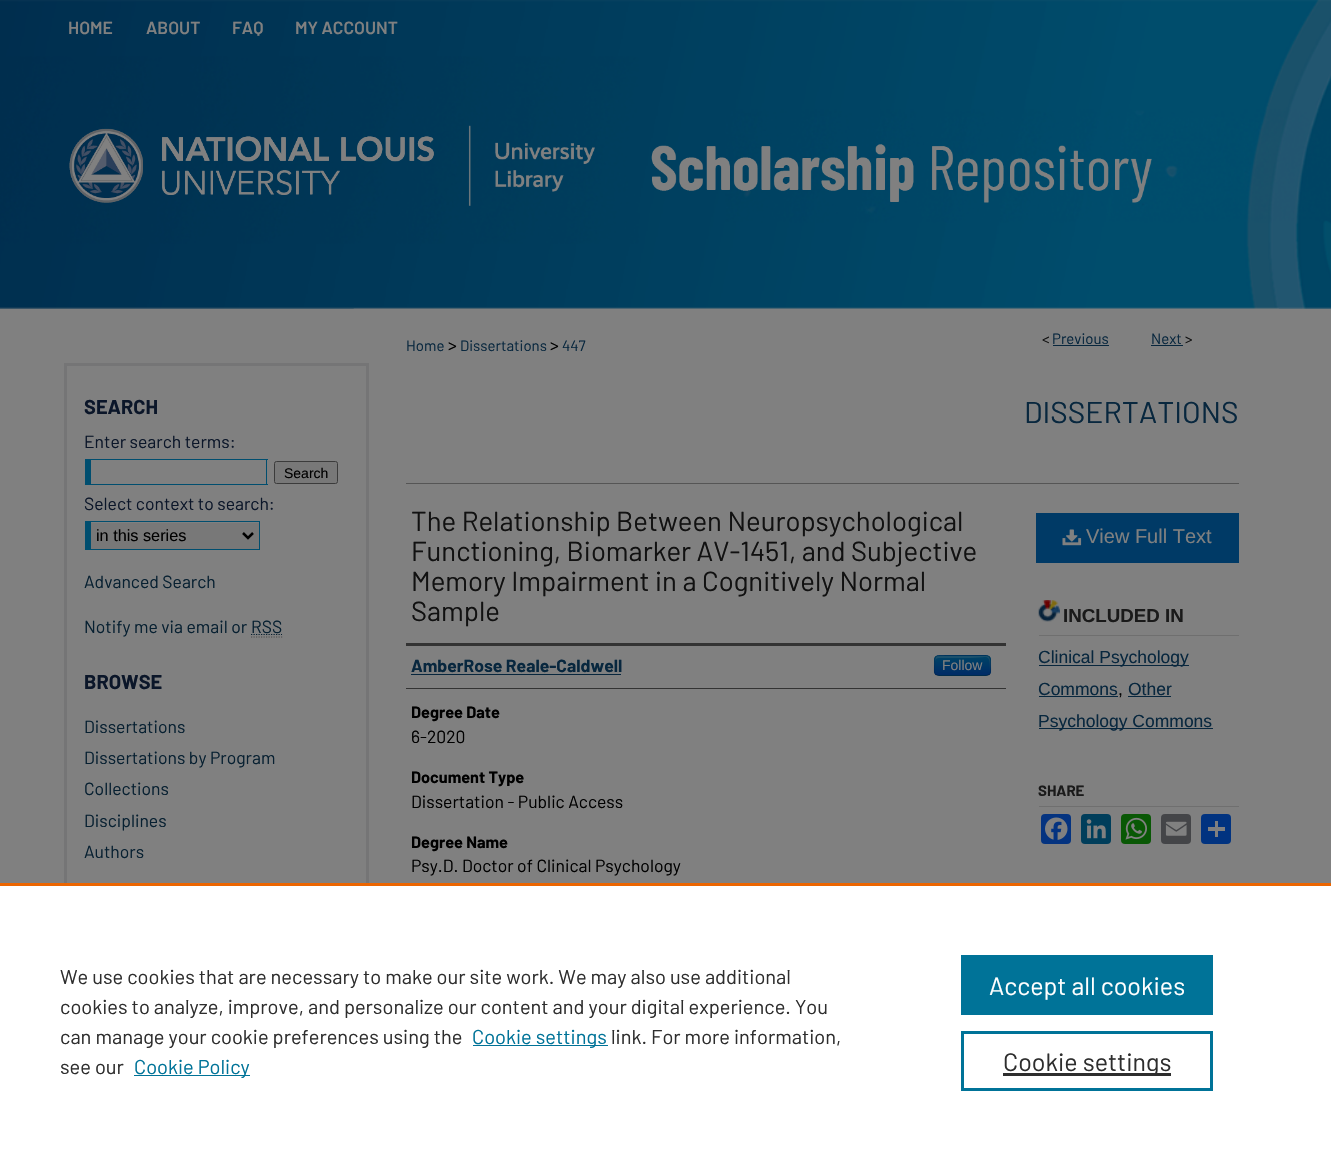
#include "include/core/SkBlurTypes.h"
#include "include/core/SkCanvas.h"
#include "include/core/SkData.h"
#include "include/core/SkFont.h"
#include "include/core/SkFontMgr.h"
#include "include/core/SkImage.h"
#include "include/core/SkMaskFilter.h"
#include "include/core/SkPaint.h"
#include "include/core/SkPathBuilder.h"
#include "include/core/SkTextBlob.h"
#include "include/effects/SkDashPathEffect.h"
#include "include/effects/SkGradientShader.h"
#include "include/utils/SkParsePath.h"

extern sk_sp<SkFontMgr> fontMgr;

void draw(SkCanvas* canvas) {
  SkPaint p;
  p.setAntiAlias(true);
  canvas->clear(SkColorSetRGB(128, 128, 128));
  canvas->drawImageRect(SkImages::DeferredFromEncodedData(SkData::MakeFromFileName("images/1.png")), SkRect::MakeLTRB(0, 0, 1331, 309), SkSamplingOptions());
  canvas->drawImageRect(SkImages::DeferredFromEncodedData(SkData::MakeFromFileName("images/2.png")), SkRect::MakeLTRB(69, 125, 1152, 206), SkSamplingOptions());
  canvas->drawImageRect(SkImages::DeferredFromEncodedData(SkData::MakeFromFileName("images/3.png")), SkRect::MakeLTRB(69, 128, 434, 203), SkSamplingOptions());
  canvas->drawImageRect(SkImages::DeferredFromEncodedData(SkData::MakeFromFileName("images/4.png")), SkRect::MakeLTRB(353, 308, 1279, 309), SkSamplingOptions());
  p.setStyle(SkPaint::kStroke_Style);
  p.setStrokeWidth(1.2f);
  p.setColor(SkColorSetRGB(77, 77, 77));
  p.setPathEffect(SkDashPathEffect::Make({{1.25f, 1.25f}}, 0));
  canvas->drawPath(SkPathBuilder().moveTo(251, 637).lineTo(282.5f, 637).detach(), p);
  p.setPathEffect(nullptr);
  p.setColor(SkColorSetRGB(7, 32, 49));
  p.setPathEffect(SkDashPathEffect::Make({{1.25f, 1.25f}}, 0));
  canvas->drawPath(SkPathBuilder().moveTo(251, 634.5f).lineTo(282, 634.5f).detach(), p);
  p.setPathEffect(nullptr);
  p.setStrokeWidth(3);
  p.setColor(SkColorSetRGB(117, 117, 118));
  canvas->drawRect(SkRect::MakeLTRB(65.5f, 364.5f, 367.5f, 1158.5f), p);
  p.setStyle(SkPaint::kFill_Style);
  p.setColor(SkColorSetRGB(0, 78, 111));
  canvas->drawRect(SkRect::MakeLTRB(85, 459, 268, 460), p);
  canvas->drawRect(SkRect::MakeLTRB(266, 459, 267, 485), p);
  canvas->drawRect(SkRect::MakeLTRB(85, 484, 268, 485), p);
  canvas->drawRect(SkRect::MakeLTRB(85, 459, 91, 485), p);
  p.setColor(SkColorSetRGB(120, 120, 120));
  canvas->drawRoundRect(SkRect::MakeLTRB(274.5f, 461.5f, 337.5f, 483.5f), 2, 2, p);
  p.setStyle(SkPaint::kStroke_Style);
  p.setStrokeWidth(1);
  p.setColor(SkColorSetRGB(59, 59, 59));
  canvas->drawRoundRect(SkRect::MakeLTRB(274.5f, 461.5f, 337.5f, 483.5f), 2, 2, p);
  p.setStyle(SkPaint::kFill_Style);
  p.setColor(SkColorSetRGB(120, 120, 120));
  canvas->drawRect(SkRect::MakeLTRB(91, 523, 259, 549), p);
  p.setColor(SkColorSetRGB(0, 78, 111));
  canvas->drawRect(SkRect::MakeLTRB(85, 521, 260, 522), p);
  canvas->drawRect(SkRect::MakeLTRB(259, 521, 260, 550), p);
  canvas->drawRect(SkRect::MakeLTRB(85, 549, 260, 550), p);
  canvas->drawRect(SkRect::MakeLTRB(85, 521, 91, 550), p);
  p.setStyle(SkPaint::kStroke_Style);
  p.setStrokeWidth(2.5f);
  p.setColor(SK_ColorBLACK);
  canvas->drawPath(SkPathBuilder().moveTo(243, 533).lineTo(248, 538).lineTo(253, 533).detach(), p);
  p.setStyle(SkPaint::kFill_Style);
  p.setColor(SkColorSetRGB(8, 39, 62));
  canvas->drawRect(SkRect::MakeLTRB(1053, 345, 1109, 346), p);
  canvas->drawRect(SkRect::MakeLTRB(1151, 345, 1183, 346), p);
  p.setColor(SkColorSetRGB(85, 85, 85));
  canvas->drawRect(SkRect::MakeLTRB(406, 483, 1239, 484), p);
  p.setColor(SkColorSetRGB(51, 51, 51));
  canvas->drawRect(SkRect::MakeLTRB(406, 643, 1006, 646), p);
  canvas->drawRect(SkRect::MakeLTRB(406, 688, 1006, 689), p);
  p.setColor(SkColorSetRGB(8, 39, 62));
  canvas->drawRect(SkRect::MakeLTRB(411, 674, 621, 675), p);
  p.setColor(SkColorSetRGB(0, 58, 102));
  canvas->drawRoundRect(SkRect::MakeLTRB(934, 655, 991, 676), 5, 5, p);
  canvas->save();
  canvas->clipPath(SkPathBuilder().moveTo(939, 655).lineTo(986, 655).cubicTo(989, 655, 991, 657, 991, 660).lineTo(991, 671).cubicTo(991, 674, 989, 676, 986, 676).lineTo(939, 676).cubicTo(936, 676, 934, 674, 934, 671).lineTo(934, 660).cubicTo(934, 657, 936, 655, 939, 655).close().detach(), true);
  {
    const SkColor colors[] = {SkColorSetRGB(0, 68, 102), SkColorSetRGB(0, 43, 102)};
    const float stops[] = {0, 1};
    const SkPoint ends[] = {{963, 656}, {963, 675}};
    p.setShader(SkGradientShader::MakeLinear(ends, colors, stops, 2, SkTileMode::kClamp));
    p.setAlpha(255);
  }
  canvas->drawRect(SkRect::MakeLTRB(934, 656, 991, 675), p);
  canvas->restore();
  p.setShader(nullptr);
  p.setColor(SkColorSetARGB(51, 128, 128, 128));
  canvas->drawPath(SkPathBuilder().moveTo(939, 658).lineTo(970, 658).cubicTo(988, 658, 990, 652, 990, 671).cubicTo(990, 667, 992, 657, 987, 656).lineTo(947, 656).cubicTo(937, 656, 935, 654, 935, 664).lineTo(935, 673).lineTo(935, 666).cubicTo(935, 663, 934, 658, 939, 658).close().detach(), p);
  p.setStyle(SkPaint::kStroke_Style);
  p.setStrokeWidth(1.2f);
  p.setColor(SkColorSetARGB(64, 0, 0, 0));
  canvas->drawPath(SkPathBuilder().moveTo(989.5f, 674.5f).cubicTo(988.5f, 675, 987.5f, 675.5f, 986, 675.5f).lineTo(939, 675.5f).cubicTo(937.5f, 675.5f, 936.5f, 675, 935.5f, 674.5f).detach(), p);
  p.setColor(SkColorSetARGB(26, 0, 0, 0));
  canvas->drawPath(SkPathBuilder().moveTo(935.5f, 674.5f).cubicTo(933.5f, 672, 934.5f, 668.5f, 934.5f, 665.5f).cubicTo(934.5f, 654.5f, 935, 655.5f, 946.5f, 655.5f).lineTo(978.5f, 655.5f).cubicTo(990, 655.5f, 990.5f, 654.5f, 990.5f, 665.5f).cubicTo(990.5f, 668.5f, 991.5f, 672, 989.5f, 674.5f).detach(), p);
  p.setStyle(SkPaint::kFill_Style);
  p.setColor(SkColorSetRGB(0, 58, 102));
  canvas->drawRect(SkRect::MakeLTRB(1036, 513, 1239, 563), p);
  canvas->drawImageRect(SkImages::DeferredFromEncodedData(SkData::MakeFromFileName("images/5.png")), SkRect::MakeLTRB(1062, 529, 1082, 546), SkSamplingOptions());
  canvas->drawImageRect(SkImages::DeferredFromEncodedData(SkData::MakeFromFileName("images/6.png")), SkRect::MakeLTRB(1038, 600, 1060, 622), SkSamplingOptions());
  p.setColor(SkColorSetRGB(111, 111, 111));
  canvas->drawRect(SkRect::MakeLTRB(1039, 635, 1239, 636), p);
  p.setColor(SkColorSetRGB(8, 39, 62));
  canvas->drawRect(SkRect::MakeLTRB(1039, 665, 1189, 666), p);
  canvas->drawRect(SkRect::MakeLTRB(1039, 696, 1118, 697), p);
  canvas->drawRect(SkRect::MakeLTRB(1128, 696, 1171, 697), p);
  canvas->drawRect(SkRect::MakeLTRB(1039, 728, 1213, 729), p);
  p.setColor(SkColorSetRGB(111, 111, 111));
  canvas->drawRect(SkRect::MakeLTRB(1039, 806, 1239, 807), p);
  p.setColor(SkColorSetRGB(4, 51, 128));
  canvas->drawRoundRect(SkRect::MakeLTRB(1041, 814, 1071, 844), 4, 4, p);
  canvas->drawImageRect(SkImages::DeferredFromEncodedData(SkData::MakeFromFileName("images/7.png")), SkRect::MakeLTRB(1045, 817, 1068, 840), SkSamplingOptions());
  p.setColor(SkColorSetRGB(0, 62, 91));
  canvas->drawRoundRect(SkRect::MakeLTRB(1081, 814, 1111, 844), 4, 4, p);
  canvas->drawImageRect(SkImages::DeferredFromEncodedData(SkData::MakeFromFileName("images/8.png")), SkRect::MakeLTRB(1086, 819, 1106, 839), SkSamplingOptions());
  p.setColor(SkColorSetRGB(9, 88, 5));
  canvas->drawRoundRect(SkRect::MakeLTRB(1121, 814, 1151, 844), 4, 4, p);
  canvas->drawImageRect(SkImages::DeferredFromEncodedData(SkData::MakeFromFileName("images/9.png")), SkRect::MakeLTRB(1125, 817, 1147, 840), SkSamplingOptions());
  p.setColor(SkColorSetRGB(68, 69, 72));
  canvas->drawRoundRect(SkRect::MakeLTRB(1161, 814, 1191, 844), 4, 4, p);
  canvas->drawImageRect(SkImages::DeferredFromEncodedData(SkData::MakeFromFileName("images/10.png")), SkRect::MakeLTRB(1165, 821, 1187, 836), SkSamplingOptions());
  p.setColor(SkColorSetRGB(1, 51, 128));
  canvas->drawRoundRect(SkRect::MakeLTRB(1201, 814, 1231, 844), 4, 4, p);
  p.setColor(SkColorSetRGB(128, 128, 128));
  canvas->drawRect(SkRect::MakeLTRB(1215, 821, 1218, 837), p);
  canvas->drawRect(SkRect::MakeLTRB(1208, 827, 1225, 831), p);
  p.setColor(SK_ColorWHITE);
  canvas->drawRect(SkRect::MakeLTRB(0, 886, 1331, 1157), p);
  p.setColor(SkColorSetRGB(235, 101, 0));
  canvas->drawRect(SkRect::MakeLTRB(0, 883, 1331, 886), p);
  p.setColor(SkColorSetRGB(0, 115, 152));
  canvas->drawRect(SkRect::MakeLTRB(473, 1045, 608, 1046), p);
  canvas->drawRect(SkRect::MakeLTRB(134, 1075, 250, 1076), p);
  canvas->drawRect(SkRect::MakeLTRB(961, 955, 1213, 1015), p);
  p.setStyle(SkPaint::kStroke_Style);
  p.setStrokeWidth(3);
  canvas->drawRect(SkRect::MakeLTRB(962.5f, 1032.5f, 1211.5f, 1089.5f), p);
  p.setStyle(SkPaint::kFill_Style);
  p.setColor(SkColorSetRGB(46, 46, 46));
  canvas->drawRect(SkRect::MakeLTRB(1003, 1073, 1171, 1076), p);
  SkFont font1(fontMgr->matchFamilyStyle("Barlow", SkFontStyle(600, SkFontStyle::kNormal_Width, SkFontStyle::kUpright_Slant)), 17.5f);
  font1.setSubpixel(true);
  p.setColor(SkColorSetRGB(128, 128, 128));
  canvas->drawString("HOME", 68, 34, font1, p);
  canvas->drawString("ABOUT", 146, 34, font1, p);
  canvas->drawString("FAQ", 232, 34, font1, p);
  canvas->drawString("MY ACCOUNT", 295, 34, font1, p);
  SkFont font2(fontMgr->matchFamilyStyle("Barlow", SkFontStyle::Bold()), 20);
  font2.setSubpixel(true);
  p.setColor(SkColorSetRGB(11, 22, 41));
  canvas->drawString("SEARCH", 84, 414, font2, p);
  SkFont font3(fontMgr->matchFamilyStyle("Barlow", SkFontStyle::Normal()), 17.5f);
  font3.setSubpixel(true);
  canvas->drawString("Enter search terms:", 84, 448, font3, p);
  SkFont font4(fontMgr->matchFamilyStyle("Liberation Sans", SkFontStyle::Normal()), 14);
  font4.setSubpixel(true);
  p.setColor(SK_ColorBLACK);
  canvas->drawString("Search", 284, 478, font4, p);
  p.setColor(SkColorSetRGB(11, 22, 41));
  canvas->drawString("Select context to search:", 84, 510, font3, p);
  SkFont font5(fontMgr->matchFamilyStyle("Liberation Sans", SkFontStyle::Normal()), 16.25f);
  font5.setSubpixel(true);
  p.setColor(SK_ColorBLACK);
  canvas->drawString("in this series", 96, 541, font5, p);
  p.setColor(SkColorSetRGB(7, 32, 49));
  canvas->drawString("Advanced Search", 84, 588, font3, p);
  canvas->drawString("Notify me via email or", 84, 633, font3, p);
  canvas->drawString("RSS", 251, 633, font3, p);
  p.setColor(SkColorSetRGB(11, 22, 41));
  canvas->drawString("BROWSE", 84, 689, font2, p);
  p.setColor(SkColorSetRGB(7, 32, 49));
  canvas->drawString("Dissertations", 84, 733, font3, p);
  canvas->drawString("Dissertations by Program", 84, 764, font3, p);
  canvas->drawString("Collections", 84, 795, font3, p);
  canvas->drawString("Disciplines", 84, 827, font3, p);
  canvas->drawString("Authors", 84, 858, font3, p);
  SkFont font6(fontMgr->matchFamilyStyle("Barlow", SkFontStyle::Normal()), 15);
  font6.setSubpixel(true);
  p.setColor(SkColorSetRGB(8, 39, 62));
  canvas->drawString("Home", 406, 351, font6, p);
  p.setColor(SK_ColorBLACK);
  canvas->drawString(">", 448, 351, font3, p);
  p.setColor(SkColorSetRGB(8, 39, 62));
  canvas->drawString("Dissertations", 460, 351, font6, p);
  p.setColor(SK_ColorBLACK);
  canvas->drawString(">", 550, 351, font3, p);
  p.setColor(SkColorSetRGB(8, 39, 62));
  canvas->drawString("447", 562, 351, font6, p);
  p.setColor(SkColorSetRGB(17, 17, 17));
  canvas->drawString("<", 1042, 344, font6, p);
  p.setColor(SkColorSetRGB(8, 39, 62));
  canvas->drawString("Previous", 1052, 344, font6, p);
  canvas->drawString("Next", 1151, 344, font6, p);
  p.setColor(SkColorSetRGB(17, 17, 17));
  canvas->drawString(">", 1185, 344, font6, p);
  SkFont font7(fontMgr->matchFamilyStyle("Barlow", SkFontStyle::Normal()), 30);
  font7.setSubpixel(true);
  p.setColor(SkColorSetRGB(8, 39, 62));
  canvas->drawString("DISSERTATIONS", 1024, 423, font7, p);
  SkFont font8(fontMgr->matchFamilyStyle("Barlow", SkFontStyle::Normal()), 27.5f);
  font8.setSubpixel(true);
  p.setColor(SkColorSetRGB(17, 17, 17));
  canvas->drawString("The Relationship Between Neuropsychological", 411, 531, font8, p);
  canvas->drawString("Functioning, Biomarker AV-1451, and Subjective", 411, 561, font8, p);
  canvas->drawString("Memory Impairment in a Cognitively Normal", 411, 591, font8, p);
  canvas->drawString("Sample", 411, 621, font8, p);
  SkFont font9(fontMgr->matchFamilyStyle("Barlow", SkFontStyle::Bold()), 17.5f);
  font9.setSubpixel(true);
  p.setColor(SkColorSetRGB(8, 39, 62));
  canvas->drawString("AmberRose Reale-Caldwell", 411, 672, font9, p);
  p.setColor(SkColorSetRGB(128, 128, 128));
  canvas->drawString("Follow", 942, 670, font4, p);
  SkFont font10(fontMgr->matchFamilyStyle("Barlow", SkFontStyle::Bold()), 16.25f);
  font10.setSubpixel(true);
  p.setColor(SK_ColorBLACK);
  canvas->drawString("Degree Date", 411, 718, font10, p);
  canvas->drawString("6-2020", 411, 743, font3, p);
  canvas->drawString("Document Type", 411, 783, font10, p);
  canvas->drawString("Dissertation - Public Access", 411, 808, font3, p);
  canvas->drawString("Degree Name", 411, 848, font10, p);
  canvas->drawString("Psy.D. Doctor of Clinical Psychology", 411, 872, font3, p);
  SkFont font11(fontMgr->matchFamilyStyle("Liberation Sans", SkFontStyle::Normal()), 20);
  font11.setSubpixel(true);
  p.setColor(SkColorSetRGB(128, 128, 128));
  canvas->drawString("View Full Text", 1086, 543, font11, p);
  SkFont font12(fontMgr->matchFamilyStyle("Liberation Sans", SkFontStyle::Bold()), 18.75f);
  font12.setSubpixel(true);
  p.setColor(SkColorSetRGB(26, 26, 26));
  canvas->drawString("INCLUDED IN", 1063, 622, font12, p);
  SkFont font13(fontMgr->matchFamilyStyle("Liberation Sans", SkFontStyle::Normal()), 17.5f);
  font13.setSubpixel(true);
  p.setColor(SkColorSetRGB(8, 39, 62));
  canvas->drawString("Clinical Psychology", 1038, 663, font13, p);
  canvas->drawString("Commons", 1038, 695, font13, p);
  p.setColor(SK_ColorBLACK);
  canvas->drawString(",", 1118, 695, font13, p);
  p.setColor(SkColorSetRGB(8, 39, 62));
  canvas->drawString("Other", 1128, 695, font13, p);
  canvas->drawString("Psychology Commons", 1038, 727, font13, p);
  SkFont font14(fontMgr->matchFamilyStyle("Barlow", SkFontStyle::Bold()), 15);
  font14.setSubpixel(true);
  p.setColor(SkColorSetRGB(26, 26, 26));
  canvas->drawString("SHARE", 1038, 796, font14, p);
  SkFont font15(fontMgr->matchFamilyStyle("Barlow", SkFontStyle::Normal()), 20);
  font15.setSubpixel(true);
  p.setColor(SkColorSetRGB(46, 46, 46));
  canvas->drawString("We use cookies that are necessary to make our site work. We may also use additional", 60, 984, font15, p);
  canvas->drawString("cookies to analyze, improve, and personalize our content and your digital experience. You", 60, 1014, font15, p);
  canvas->drawString("can manage your cookie preferences using the", 60, 1044, font15, p);
  p.setColor(SkColorSetRGB(0, 115, 152));
  canvas->drawString("Cookie settings", 472, 1044, font15, p);
  p.setColor(SkColorSetRGB(46, 46, 46));
  canvas->drawString("link. For more information,", 611, 1044, font15, p);
  canvas->drawString("see our", 60, 1074, font15, p);
  p.setColor(SkColorSetRGB(0, 115, 152));
  canvas->drawString("Cookie Policy", 134, 1074, font15, p);
  SkFont font16(fontMgr->matchFamilyStyle("Barlow", SkFontStyle::Normal()), 25);
  font16.setSubpixel(true);
  p.setColor(SK_ColorWHITE);
  canvas->drawString("Accept all cookies", 989, 995, font16, p);
  p.setColor(SkColorSetRGB(46, 46, 46));
  canvas->drawString("Cookie settings", 1003, 1071, font16, p);
}
